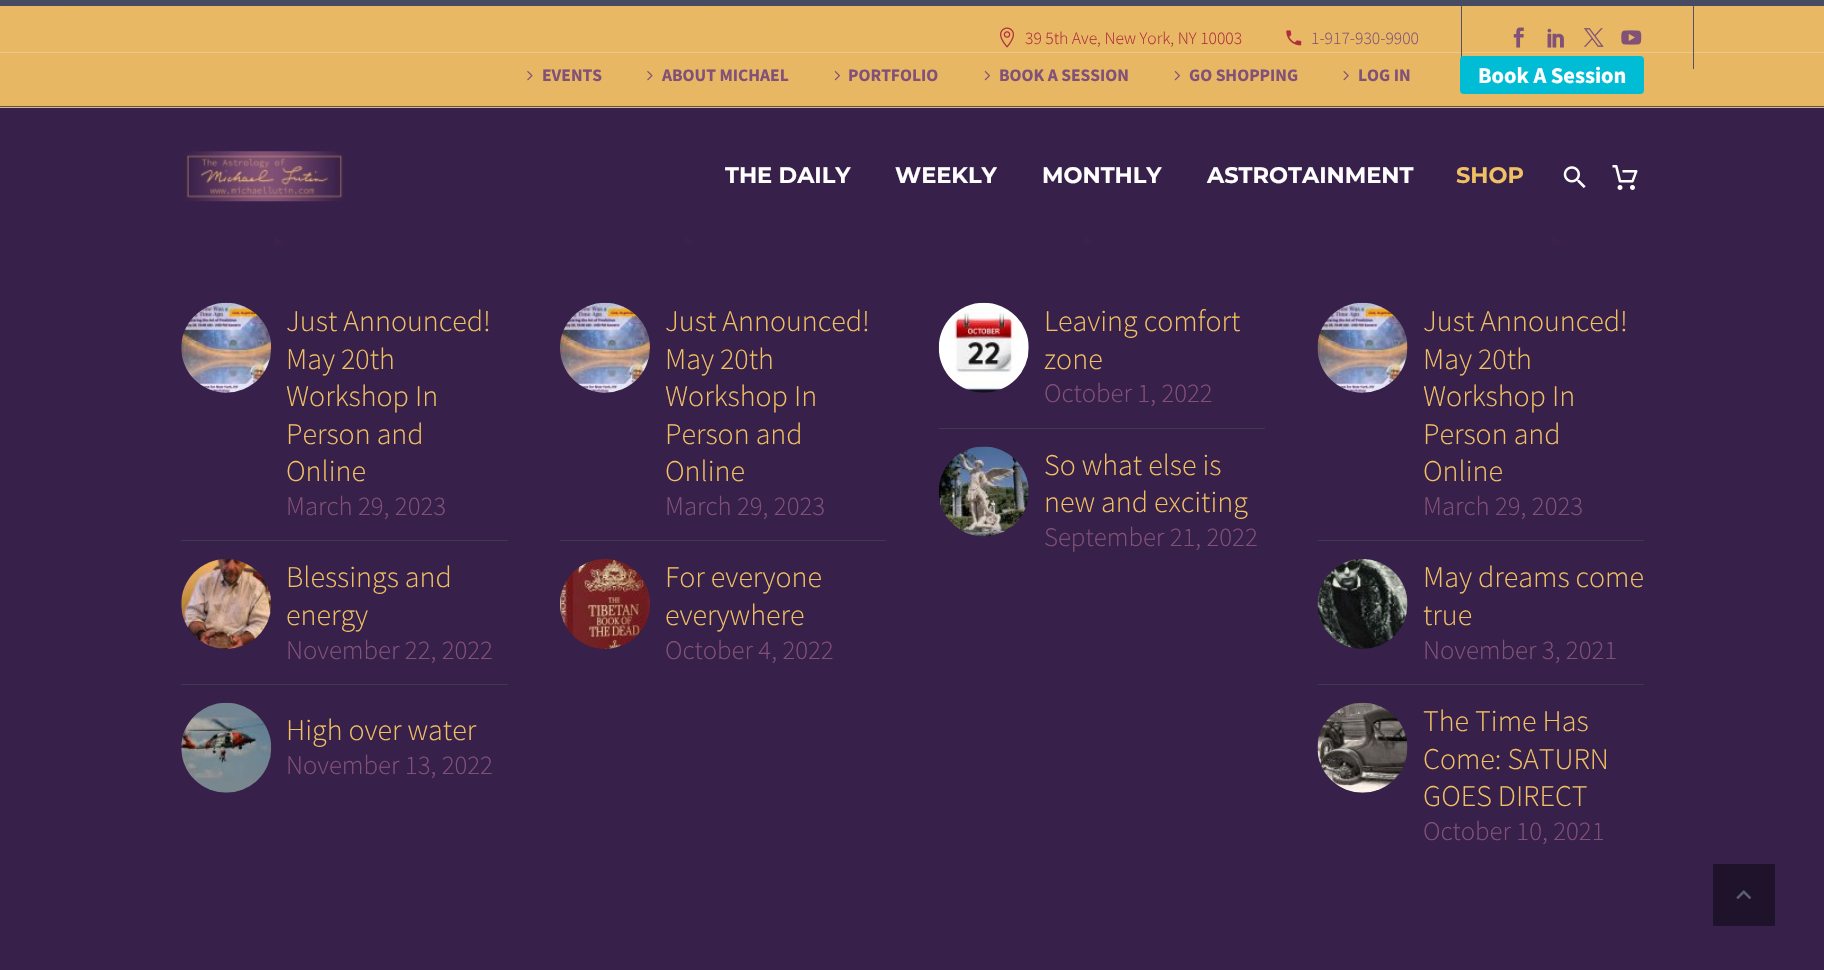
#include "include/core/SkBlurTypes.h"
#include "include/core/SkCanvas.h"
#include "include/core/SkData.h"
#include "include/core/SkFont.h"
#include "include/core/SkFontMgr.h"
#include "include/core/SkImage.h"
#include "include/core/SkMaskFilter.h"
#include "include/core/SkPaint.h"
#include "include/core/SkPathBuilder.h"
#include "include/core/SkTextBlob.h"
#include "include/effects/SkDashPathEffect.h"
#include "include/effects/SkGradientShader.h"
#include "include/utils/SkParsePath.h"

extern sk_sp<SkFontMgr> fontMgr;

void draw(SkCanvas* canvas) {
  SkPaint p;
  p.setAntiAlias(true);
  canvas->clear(SK_ColorWHITE);
  canvas->drawImageRect(SkImages::DeferredFromEncodedData(SkData::MakeFromFileName("images/1.png")), SkRect::MakeLTRB(0, 6, 1824, 53), SkSamplingOptions());
  p.setColor(SkColorSetRGB(71, 75, 97));
  canvas->drawRect(SkRect::MakeLTRB(0, 0, 1824, 6), p);
  p.setColor(SkColorSetRGB(232, 183, 99));
  canvas->drawRect(SkRect::MakeLTRB(0, 53, 1824, 108), p);
  p.setColor(SkColorSetRGB(81, 84, 108));
  canvas->drawRect(SkRect::MakeLTRB(0, 106, 1824, 107), p);
  canvas->drawImageRect(SkImages::DeferredFromEncodedData(SkData::MakeFromFileName("images/2.png")), SkRect::MakeLTRB(1000, 27, 1014, 48), SkSamplingOptions());
  canvas->drawImageRect(SkImages::DeferredFromEncodedData(SkData::MakeFromFileName("images/3.png")), SkRect::MakeLTRB(1286, 30, 1302, 46), SkSamplingOptions());
  canvas->drawRect(SkRect::MakeLTRB(1461, 6, 1462, 58), p);
  canvas->drawImageRect(SkImages::DeferredFromEncodedData(SkData::MakeFromFileName("images/4.png")), SkRect::MakeLTRB(1513, 27, 1524, 48), SkSamplingOptions());
  canvas->drawImageRect(SkImages::DeferredFromEncodedData(SkData::MakeFromFileName("images/5.png")), SkRect::MakeLTRB(1547, 28, 1564, 48), SkSamplingOptions());
  canvas->drawImageRect(SkImages::DeferredFromEncodedData(SkData::MakeFromFileName("images/6.png")), SkRect::MakeLTRB(1584, 28, 1604, 47), SkSamplingOptions());
  canvas->drawImageRect(SkImages::DeferredFromEncodedData(SkData::MakeFromFileName("images/7.png")), SkRect::MakeLTRB(1621, 30, 1642, 45), SkSamplingOptions());
  canvas->drawRect(SkRect::MakeLTRB(1693, 6, 1694, 69), p);
  canvas->drawImageRect(SkImages::DeferredFromEncodedData(SkData::MakeFromFileName("images/8.png")), SkRect::MakeLTRB(527, 71, 533, 81), SkSamplingOptions());
  canvas->drawImageRect(SkImages::DeferredFromEncodedData(SkData::MakeFromFileName("images/8.png")), SkRect::MakeLTRB(647, 71, 653, 81), SkSamplingOptions());
  canvas->drawImageRect(SkImages::DeferredFromEncodedData(SkData::MakeFromFileName("images/9.png")), SkRect::MakeLTRB(834, 71, 840, 81), SkSamplingOptions());
  canvas->drawImageRect(SkImages::DeferredFromEncodedData(SkData::MakeFromFileName("images/9.png")), SkRect::MakeLTRB(984, 71, 990, 81), SkSamplingOptions());
  canvas->drawImageRect(SkImages::DeferredFromEncodedData(SkData::MakeFromFileName("images/9.png")), SkRect::MakeLTRB(1174, 71, 1180, 81), SkSamplingOptions());
  canvas->drawImageRect(SkImages::DeferredFromEncodedData(SkData::MakeFromFileName("images/10.png")), SkRect::MakeLTRB(1343, 71, 1349, 81), SkSamplingOptions());
  p.setColor(SkColorSetRGB(0, 188, 212));
  canvas->drawRoundRect(SkRect::MakeLTRB(1460, 56, 1644, 94), 4, 4, p);
  p.setColor(SkColorSetRGB(55, 32, 73));
  canvas->drawRect(SkRect::MakeLTRB(0, 108, 1824, 970), p);
  canvas->drawImageRect(SkImages::DeferredFromEncodedData(SkData::MakeFromFileName("images/11.png")), SkRect::MakeLTRB(185, 151, 344, 202), SkSamplingOptions());
  canvas->drawImageRect(SkImages::DeferredFromEncodedData(SkData::MakeFromFileName("images/12.png")), SkRect::MakeLTRB(1563, 166, 1586, 188), SkSamplingOptions());
  canvas->drawImageRect(SkImages::DeferredFromEncodedData(SkData::MakeFromFileName("images/13.png")), SkRect::MakeLTRB(1612, 165, 1638, 190), SkSamplingOptions());
  p.setColor(SkColorSetRGB(61, 33, 72));
  canvas->drawPath(SkPathBuilder().moveTo(274, 234.5f).lineTo(274, 244.5f).lineTo(284, 244.5f).close().detach(), p);
  p.setColor(SkColorSetRGB(57, 61, 80));
  canvas->drawRect(SkRect::MakeLTRB(181, 540, 508, 541), p);
  canvas->drawImageRect(SkImages::DeferredFromEncodedData(SkData::MakeFromFileName("images/14.png")), SkRect::MakeLTRB(181, 302, 272, 393), SkSamplingOptions());
  canvas->drawRect(SkRect::MakeLTRB(181, 684, 508, 685), p);
  canvas->drawImageRect(SkImages::DeferredFromEncodedData(SkData::MakeFromFileName("images/15.png")), SkRect::MakeLTRB(181, 559, 271, 649), SkSamplingOptions());
  canvas->drawImageRect(SkImages::DeferredFromEncodedData(SkData::MakeFromFileName("images/16.png")), SkRect::MakeLTRB(181, 702, 272, 793), SkSamplingOptions());
  p.setColor(SkColorSetRGB(61, 33, 72));
  canvas->drawPath(SkPathBuilder().moveTo(685, 234.5f).lineTo(685, 244.5f).lineTo(695, 244.5f).close().detach(), p);
  p.setColor(SkColorSetRGB(57, 61, 80));
  canvas->drawRect(SkRect::MakeLTRB(560, 540, 886, 541), p);
  canvas->drawImageRect(SkImages::DeferredFromEncodedData(SkData::MakeFromFileName("images/17.png")), SkRect::MakeLTRB(560, 302, 650, 393), SkSamplingOptions());
  canvas->drawImageRect(SkImages::DeferredFromEncodedData(SkData::MakeFromFileName("images/18.png")), SkRect::MakeLTRB(560, 559, 650, 649), SkSamplingOptions());
  p.setColor(SkColorSetRGB(61, 33, 72));
  canvas->drawPath(SkPathBuilder().moveTo(1084, 234.5f).lineTo(1084, 244.5f).lineTo(1094, 244.5f).close().detach(), p);
  p.setColor(SkColorSetRGB(57, 61, 80));
  canvas->drawRect(SkRect::MakeLTRB(939, 428, 1265, 429), p);
  canvas->drawImageRect(SkImages::DeferredFromEncodedData(SkData::MakeFromFileName("images/19.png")), SkRect::MakeLTRB(938, 302, 1029, 393), SkSamplingOptions());
  canvas->drawImageRect(SkImages::DeferredFromEncodedData(SkData::MakeFromFileName("images/20.png")), SkRect::MakeLTRB(938, 446, 1029, 537), SkSamplingOptions());
  p.setColor(SkColorSetRGB(61, 33, 72));
  canvas->drawPath(SkPathBuilder().moveTo(1552.5f, 234.5f).lineTo(1552.5f, 244.5f).lineTo(1562.5f, 244.5f).close().detach(), p);
  p.setColor(SkColorSetRGB(57, 61, 80));
  canvas->drawRect(SkRect::MakeLTRB(1318, 540, 1644, 541), p);
  canvas->drawImageRect(SkImages::DeferredFromEncodedData(SkData::MakeFromFileName("images/21.png")), SkRect::MakeLTRB(1317, 302, 1408, 393), SkSamplingOptions());
  canvas->drawRect(SkRect::MakeLTRB(1318, 684, 1644, 685), p);
  canvas->drawImageRect(SkImages::DeferredFromEncodedData(SkData::MakeFromFileName("images/22.png")), SkRect::MakeLTRB(1317, 559, 1408, 649), SkSamplingOptions());
  canvas->drawImageRect(SkImages::DeferredFromEncodedData(SkData::MakeFromFileName("images/23.png")), SkRect::MakeLTRB(1317, 702, 1408, 793), SkSamplingOptions());
  p.setColor(SkColorSetRGB(31, 19, 44));
  canvas->drawRect(SkRect::MakeLTRB(1713, 864, 1775, 926), p);
  canvas->drawImageRect(SkImages::DeferredFromEncodedData(SkData::MakeFromFileName("images/24.png")), SkRect::MakeLTRB(1736, 890, 1752, 900), SkSamplingOptions());
  SkFont font1(fontMgr->matchFamilyStyle("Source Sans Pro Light", SkFontStyle(300, SkFontStyle::kNormal_Width, SkFontStyle::kUpright_Slant)), 17.5f);
  font1.setSubpixel(true);
  p.setColor(SkColorSetRGB(174, 46, 62));
  canvas->drawString("39 5th Ave, New York, NY 10003", 1025, 44, font1, p);
  p.setColor(SkColorSetRGB(130, 81, 120));
  canvas->drawString("1-917-930-9900", 1311, 44, font1, p);
  SkFont font2(fontMgr->matchFamilyStyle("Source Sans Pro", SkFontStyle::Bold()), 17.5f);
  font2.setSubpixel(true);
  canvas->drawString("EVENTS", 542, 81, font2, p);
  canvas->drawString("ABOUT MICHAEL", 662, 81, font2, p);
  canvas->drawString("PORTFOLIO", 848, 81, font2, p);
  canvas->drawString("BOOK A SESSION", 999, 81, font2, p);
  canvas->drawString("GO SHOPPING", 1189, 81, font2, p);
  canvas->drawString("LOG IN", 1358, 81, font2, p);
  SkFont font3(fontMgr->matchFamilyStyle("Source Sans Pro", SkFontStyle::Bold()), 22.5f);
  font3.setSubpixel(true);
  p.setColor(SK_ColorWHITE);
  canvas->drawString("Book A Session", 1478, 83, font3, p);
  SkFont font4(fontMgr->matchFamilyStyle("Montserrat", SkFontStyle::Bold()), 22.5f);
  font4.setSubpixel(true);
  canvas->drawString("THE DAILY", 725, 183, font4, p);
  canvas->drawString("WEEKLY", 895, 183, font4, p);
  canvas->drawString("MONTHLY", 1042, 183, font4, p);
  canvas->drawString("ASTROTAINMENT", 1207, 183, font4, p);
  p.setColor(SkColorSetRGB(241, 191, 100));
  canvas->drawString("SHOP", 1456, 183, font4, p);
  SkFont font5(fontMgr->matchFamilyStyle("Source Sans Pro Light", SkFontStyle(300, SkFontStyle::kNormal_Width, SkFontStyle::kUpright_Slant)), 30);
  font5.setSubpixel(true);
  canvas->drawString("Just Announced!", 286, 331, font5, p);
  canvas->drawString("May 20th", 286, 369, font5, p);
  canvas->drawString("Workshop In", 286, 406, font5, p);
  canvas->drawString("Person and", 286, 444, font5, p);
  canvas->drawString("Online", 286, 481, font5, p);
  SkFont font6(fontMgr->matchFamilyStyle("Source Sans Pro Light", SkFontStyle(300, SkFontStyle::kNormal_Width, SkFontStyle::kUpright_Slant)), 26.75f);
  font6.setSubpixel(true);
  p.setColor(SkColorSetRGB(130, 81, 120));
  canvas->drawString("March 29, 2023", 286, 515, font6, p);
  p.setColor(SkColorSetRGB(241, 191, 100));
  canvas->drawString("Blessings and", 286, 587, font5, p);
  canvas->drawString("energy", 286, 625, font5, p);
  p.setColor(SkColorSetRGB(130, 81, 120));
  canvas->drawString("November 22, 2022", 286, 659, font6, p);
  p.setColor(SkColorSetRGB(241, 191, 100));
  canvas->drawString("High over water", 286, 740, font5, p);
  p.setColor(SkColorSetRGB(130, 81, 120));
  canvas->drawString("November 13, 2022", 286, 774, font6, p);
  p.setColor(SkColorSetRGB(241, 191, 100));
  canvas->drawString("Just Announced!", 665, 331, font5, p);
  canvas->drawString("May 20th", 665, 369, font5, p);
  canvas->drawString("Workshop In", 665, 406, font5, p);
  canvas->drawString("Person and", 665, 444, font5, p);
  canvas->drawString("Online", 665, 481, font5, p);
  p.setColor(SkColorSetRGB(130, 81, 120));
  canvas->drawString("March 29, 2023", 665, 515, font6, p);
  p.setColor(SkColorSetRGB(241, 191, 100));
  canvas->drawString("For everyone", 665, 587, font5, p);
  canvas->drawString("everywhere", 665, 625, font5, p);
  p.setColor(SkColorSetRGB(130, 81, 120));
  canvas->drawString("October 4, 2022", 665, 659, font6, p);
  p.setColor(SkColorSetRGB(241, 191, 100));
  canvas->drawString("Leaving comfort", 1044, 331, font5, p);
  canvas->drawString("zone", 1044, 369, font5, p);
  p.setColor(SkColorSetRGB(130, 81, 120));
  canvas->drawString("October 1, 2022", 1044, 402, font6, p);
  p.setColor(SkColorSetRGB(241, 191, 100));
  canvas->drawString("So what else is", 1044, 475, font5, p);
  canvas->drawString("new and exciting", 1044, 512, font5, p);
  p.setColor(SkColorSetRGB(130, 81, 120));
  canvas->drawString("September 21, 2022", 1044, 546, font6, p);
  p.setColor(SkColorSetRGB(241, 191, 100));
  canvas->drawString("Just Announced!", 1423, 331, font5, p);
  canvas->drawString("May 20th", 1423, 369, font5, p);
  canvas->drawString("Workshop In", 1423, 406, font5, p);
  canvas->drawString("Person and", 1423, 444, font5, p);
  canvas->drawString("Online", 1423, 481, font5, p);
  p.setColor(SkColorSetRGB(130, 81, 120));
  canvas->drawString("March 29, 2023", 1423, 515, font6, p);
  p.setColor(SkColorSetRGB(241, 191, 100));
  canvas->drawString("May dreams come", 1423, 587, font5, p);
  canvas->drawString("true", 1423, 625, font5, p);
  p.setColor(SkColorSetRGB(130, 81, 120));
  canvas->drawString("November 3, 2021", 1423, 659, font6, p);
  p.setColor(SkColorSetRGB(241, 191, 100));
  canvas->drawString("The Time Has", 1423, 731, font5, p);
  canvas->drawString("Come: SATURN", 1423, 769, font5, p);
  canvas->drawString("GOES DIRECT", 1423, 806, font5, p);
  p.setColor(SkColorSetRGB(130, 81, 120));
  canvas->drawString("October 10, 2021", 1423, 840, font6, p);
}
